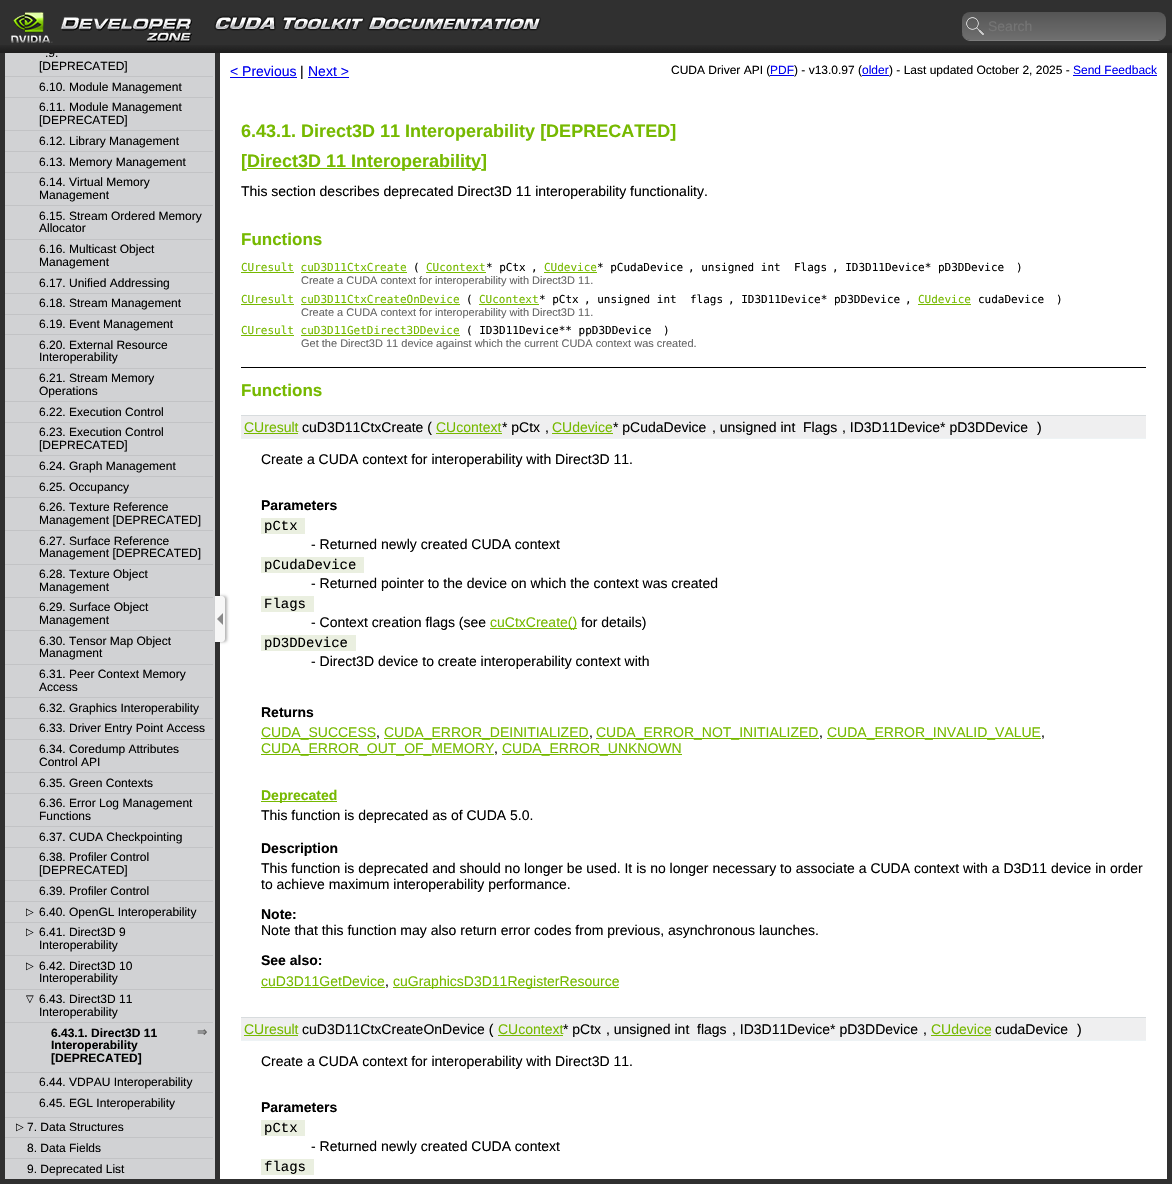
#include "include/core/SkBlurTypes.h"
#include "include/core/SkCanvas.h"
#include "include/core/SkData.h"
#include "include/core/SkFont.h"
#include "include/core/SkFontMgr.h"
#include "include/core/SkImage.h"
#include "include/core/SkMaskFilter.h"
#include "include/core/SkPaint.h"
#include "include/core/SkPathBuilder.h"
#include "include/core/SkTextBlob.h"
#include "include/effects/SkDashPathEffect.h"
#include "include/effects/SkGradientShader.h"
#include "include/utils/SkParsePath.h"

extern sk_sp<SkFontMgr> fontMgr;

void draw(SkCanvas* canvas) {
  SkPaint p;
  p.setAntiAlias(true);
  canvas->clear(SK_ColorWHITE);
  p.setColor(SkColorSetRGB(48, 48, 48));
  canvas->drawRect(SkRect::MakeLTRB(0, 0, 1172, 45), p);
  canvas->drawImageRect(SkImages::DeferredFromEncodedData(SkData::MakeFromFileName("images/1.png")), SkRect::MakeLTRB(0, 45, 1172, 53), SkSamplingOptions());
  canvas->drawImageRect(SkImages::DeferredFromEncodedData(SkData::MakeFromFileName("images/2.png")), SkRect::MakeLTRB(11, 12, 192, 43), SkSamplingOptions());
  canvas->drawImageRect(SkImages::DeferredFromEncodedData(SkData::MakeFromFileName("images/3.png")), SkRect::MakeLTRB(214, 15, 541, 31), SkSamplingOptions());
  p.setColor(SkColorSetRGB(125, 125, 125));
  canvas->drawPath(SkPathBuilder().moveTo(962, 32).lineTo(962, 33).cubicTo(962, 37, 966, 41, 970, 41).lineTo(1158, 41).cubicTo(1162, 41, 1166, 37, 1166, 33).lineTo(1166, 32).cubicTo(1166, 36, 1162, 40, 1158, 40).lineTo(970, 40).cubicTo(966, 40, 962, 36, 962, 32).close().detach(), p);
  {
    const SkColor colors[] = {SkColorSetRGB(111, 111, 111), SkColorSetRGB(85, 85, 85)};
    const float stops[] = {0, 1};
    const SkPoint ends[] = {{1064, 40}, {1064, 12}};
    p.setShader(SkGradientShader::MakeLinear(ends, colors, stops, 2, SkTileMode::kClamp));
    p.setAlpha(255);
  }
  canvas->drawRoundRect(SkRect::MakeLTRB(962, 12, 1166, 40), 8, 8, p);
  canvas->drawImageRect(SkImages::DeferredFromEncodedData(SkData::MakeFromFileName("images/4.png")), SkRect::MakeLTRB(966, 17, 984, 35), SkSamplingOptions());
  p.setShader(nullptr);
  p.setColor(SkColorSetRGB(48, 48, 48));
  canvas->drawRect(SkRect::MakeLTRB(1167, 53, 1172, 1184), p);
  canvas->drawRect(SkRect::MakeLTRB(0, 1179, 1172, 1184), p);
  canvas->drawRect(SkRect::MakeLTRB(0, 53, 5, 1184), p);
  p.setColor(SkColorSetRGB(209, 210, 212));
  canvas->drawRect(SkRect::MakeLTRB(5, 53, 215, 1179), p);
  p.setColor(SkColorSetRGB(194, 195, 197));
  canvas->drawRect(SkRect::MakeLTRB(5, 76, 213, 77), p);
  canvas->drawRect(SkRect::MakeLTRB(5, 97, 213, 98), p);
  canvas->drawRect(SkRect::MakeLTRB(5, 130, 213, 131), p);
  canvas->drawRect(SkRect::MakeLTRB(5, 151, 213, 152), p);
  canvas->drawRect(SkRect::MakeLTRB(5, 172, 213, 173), p);
  canvas->drawRect(SkRect::MakeLTRB(5, 205, 213, 206), p);
  canvas->drawRect(SkRect::MakeLTRB(5, 239, 213, 240), p);
  canvas->drawRect(SkRect::MakeLTRB(5, 272, 213, 273), p);
  canvas->drawRect(SkRect::MakeLTRB(5, 293, 213, 294), p);
  canvas->drawRect(SkRect::MakeLTRB(5, 314, 213, 315), p);
  canvas->drawRect(SkRect::MakeLTRB(5, 334, 213, 335), p);
  canvas->drawRect(SkRect::MakeLTRB(5, 368, 213, 369), p);
  canvas->drawRect(SkRect::MakeLTRB(5, 401, 213, 402), p);
  canvas->drawRect(SkRect::MakeLTRB(5, 422, 213, 423), p);
  canvas->drawRect(SkRect::MakeLTRB(5, 455, 213, 456), p);
  canvas->drawRect(SkRect::MakeLTRB(5, 476, 213, 477), p);
  canvas->drawRect(SkRect::MakeLTRB(5, 497, 213, 498), p);
  canvas->drawRect(SkRect::MakeLTRB(5, 530, 213, 531), p);
  canvas->drawRect(SkRect::MakeLTRB(5, 564, 213, 565), p);
  canvas->drawRect(SkRect::MakeLTRB(5, 597, 213, 598), p);
  canvas->drawRect(SkRect::MakeLTRB(5, 630, 213, 631), p);
  canvas->drawRect(SkRect::MakeLTRB(5, 664, 213, 665), p);
  canvas->drawRect(SkRect::MakeLTRB(5, 697, 213, 698), p);
  canvas->drawRect(SkRect::MakeLTRB(5, 718, 213, 719), p);
  canvas->drawRect(SkRect::MakeLTRB(5, 739, 213, 740), p);
  canvas->drawRect(SkRect::MakeLTRB(5, 772, 213, 773), p);
  canvas->drawRect(SkRect::MakeLTRB(5, 793, 213, 794), p);
  canvas->drawRect(SkRect::MakeLTRB(5, 826, 213, 827), p);
  canvas->drawRect(SkRect::MakeLTRB(5, 847, 213, 848), p);
  canvas->drawRect(SkRect::MakeLTRB(5, 880, 213, 881), p);
  canvas->drawRect(SkRect::MakeLTRB(5, 901, 213, 902), p);
  canvas->drawRect(SkRect::MakeLTRB(5, 922, 213, 923), p);
  canvas->drawRect(SkRect::MakeLTRB(5, 955, 213, 956), p);
  canvas->drawRect(SkRect::MakeLTRB(5, 989, 213, 990), p);
  canvas->drawRect(SkRect::MakeLTRB(5, 1022, 213, 1023), p);
  canvas->drawRect(SkRect::MakeLTRB(5, 1072, 213, 1073), p);
  canvas->drawRect(SkRect::MakeLTRB(5, 1092, 213, 1093), p);
  canvas->drawRect(SkRect::MakeLTRB(5, 1117, 213, 1118), p);
  canvas->drawRect(SkRect::MakeLTRB(5, 1137, 213, 1138), p);
  canvas->drawRect(SkRect::MakeLTRB(5, 1158, 213, 1159), p);
  p.setColor(SkColorSetRGB(48, 48, 48));
  canvas->drawRect(SkRect::MakeLTRB(215, 53, 220, 1179), p);
  p.setColor(SkColorSetARGB(77, 0, 0, 0));
  p.setMaskFilter(SkMaskFilter::MakeBlur(kNormal_SkBlurStyle, 1.5f));
  canvas->drawRoundRect(SkRect::MakeLTRB(217, 596, 227, 642), 3, 3, p);
  p.setMaskFilter(nullptr);
  p.setColor(SkColorSetRGB(247, 247, 247));
  canvas->drawPath(SkPathBuilder().moveTo(215, 596).lineTo(222, 596).cubicTo(223.5f, 596, 225, 597.5f, 225, 599).lineTo(225, 639).cubicTo(225, 640.5f, 223.5f, 642, 222, 642).lineTo(215, 642).close().detach(), p);
  p.setColor(SkColorSetRGB(137, 137, 137));
  canvas->drawPath(SkPathBuilder().moveTo(223, 613).lineTo(223, 625).lineTo(217, 619).close().detach(), p);
  p.setColor(SkColorSetRGB(0, 0, 238));
  canvas->drawRect(SkRect::MakeLTRB(230, 77, 297, 78), p);
  canvas->drawRect(SkRect::MakeLTRB(308, 77, 349, 78), p);
  canvas->drawRect(SkRect::MakeLTRB(770, 75, 794, 76), p);
  canvas->drawRect(SkRect::MakeLTRB(862, 75, 889, 76), p);
  canvas->drawRect(SkRect::MakeLTRB(1073, 75, 1157, 76), p);
  p.setColor(SkColorSetRGB(118, 185, 0));
  canvas->drawRect(SkRect::MakeLTRB(247, 168, 481, 169), p);
  canvas->drawRect(SkRect::MakeLTRB(241, 272, 294, 273), p);
  canvas->drawRect(SkRect::MakeLTRB(301, 272, 407, 273), p);
  canvas->drawRect(SkRect::MakeLTRB(426, 272, 486, 273), p);
  canvas->drawRect(SkRect::MakeLTRB(544, 272, 597, 273), p);
  canvas->drawRect(SkRect::MakeLTRB(241, 304, 294, 305), p);
  canvas->drawRect(SkRect::MakeLTRB(301, 304, 460, 305), p);
  canvas->drawRect(SkRect::MakeLTRB(479, 304, 539, 305), p);
  canvas->drawRect(SkRect::MakeLTRB(918, 304, 971, 305), p);
  canvas->drawRect(SkRect::MakeLTRB(241, 335, 294, 336), p);
  canvas->drawRect(SkRect::MakeLTRB(301, 335, 460, 336), p);
  p.setColor(SK_ColorBLACK);
  canvas->drawRect(SkRect::MakeLTRB(241, 367, 1146, 368), p);
  p.setColor(SkColorSetRGB(239, 239, 240));
  canvas->drawRect(SkRect::MakeLTRB(241, 416, 1146, 438), p);
  p.setColor(SkColorSetRGB(216, 220, 222));
  canvas->drawRect(SkRect::MakeLTRB(241, 415, 1146, 416), p);
  p.setColor(SkColorSetRGB(238, 243, 245));
  canvas->drawRect(SkRect::MakeLTRB(241, 438, 1146, 439), p);
  p.setColor(SkColorSetRGB(118, 185, 0));
  canvas->drawRect(SkRect::MakeLTRB(244, 433, 298, 434), p);
  canvas->drawRect(SkRect::MakeLTRB(436, 433, 502, 434), p);
  canvas->drawRect(SkRect::MakeLTRB(552, 433, 613, 434), p);
  p.setColor(SkColorSetRGB(234, 239, 224));
  canvas->drawRect(SkRect::MakeLTRB(261, 518, 305, 534), p);
  canvas->drawRect(SkRect::MakeLTRB(261, 557, 364, 573), p);
  canvas->drawRect(SkRect::MakeLTRB(261, 596, 314, 612), p);
  p.setColor(SkColorSetRGB(118, 185, 0));
  canvas->drawRect(SkRect::MakeLTRB(490, 628, 577, 629), p);
  p.setColor(SkColorSetRGB(234, 239, 224));
  canvas->drawRect(SkRect::MakeLTRB(261, 635, 356, 651), p);
  p.setColor(SkColorSetRGB(118, 185, 0));
  canvas->drawRect(SkRect::MakeLTRB(261, 738, 376, 739), p);
  canvas->drawRect(SkRect::MakeLTRB(384, 738, 589, 739), p);
  canvas->drawRect(SkRect::MakeLTRB(596, 738, 819, 739), p);
  canvas->drawRect(SkRect::MakeLTRB(827, 738, 1041, 739), p);
  canvas->drawRect(SkRect::MakeLTRB(261, 754, 494, 755), p);
  canvas->drawRect(SkRect::MakeLTRB(502, 754, 682, 755), p);
  canvas->drawRect(SkRect::MakeLTRB(261, 801, 337, 802), p);
  canvas->drawRect(SkRect::MakeLTRB(261, 987, 385, 988), p);
  canvas->drawRect(SkRect::MakeLTRB(393, 987, 619, 988), p);
  p.setColor(SkColorSetRGB(239, 239, 240));
  canvas->drawRect(SkRect::MakeLTRB(241, 1018, 1146, 1040), p);
  p.setColor(SkColorSetRGB(216, 220, 222));
  canvas->drawRect(SkRect::MakeLTRB(241, 1017, 1146, 1018), p);
  p.setColor(SkColorSetRGB(238, 243, 245));
  canvas->drawRect(SkRect::MakeLTRB(241, 1040, 1146, 1041), p);
  p.setColor(SkColorSetRGB(118, 185, 0));
  canvas->drawRect(SkRect::MakeLTRB(244, 1035, 298, 1036), p);
  canvas->drawRect(SkRect::MakeLTRB(498, 1035, 563, 1036), p);
  canvas->drawRect(SkRect::MakeLTRB(931, 1035, 991, 1036), p);
  p.setColor(SkColorSetRGB(234, 239, 224));
  canvas->drawRect(SkRect::MakeLTRB(261, 1120, 305, 1136), p);
  canvas->drawRect(SkRect::MakeLTRB(261, 1159, 314, 1175), p);
  SkFont font1(fontMgr->matchFamilyStyle("Liberation Sans", SkFontStyle::Normal()), 14);
  font1.setSubpixel(true);
  p.setColor(SkColorSetRGB(117, 117, 117));
  canvas->drawString("Search", 988, 31, font1, p);
  canvas->save();
  canvas->clipRect(SkRect::MakeLTRB(5, 53, 215, 1179));
  SkFont font2(fontMgr->matchFamilyStyle("Liberation Sans", SkFontStyle::Normal()), 12);
  font2.setSubpixel(true);
  p.setColor(SK_ColorBLACK);
  canvas->drawString(".9.", 45, 57, font2, p);
  canvas->restore();
  canvas->drawString("[DEPRECATED]", 39, 70, font2, p);
  canvas->drawString("6.10. Module Management", 39, 91, font2, p);
  canvas->drawString("6.11. Module Management", 39, 111, font2, p);
  canvas->drawString("[DEPRECATED]", 39, 124, font2, p);
  canvas->drawString("6.12. Library Management", 39, 145, font2, p);
  canvas->drawString("6.13. Memory Management", 39, 166, font2, p);
  canvas->drawString("6.14. Virtual Memory", 39, 186, font2, p);
  canvas->drawString("Management", 39, 199, font2, p);
  canvas->drawString("6.15. Stream Ordered Memory", 39, 220, font2, p);
  canvas->drawString("Allocator", 39, 232, font2, p);
  canvas->drawString("6.16. Multicast Object", 39, 253, font2, p);
  canvas->drawString("Management", 39, 266, font2, p);
  canvas->drawString("6.17. Unified Addressing", 39, 287, font2, p);
  canvas->drawString("6.18. Stream Management", 39, 307, font2, p);
  canvas->drawString("6.19. Event Management", 39, 328, font2, p);
  canvas->drawString("6.20. External Resource", 39, 349, font2, p);
  canvas->drawString("Interoperability", 39, 361, font2, p);
  canvas->drawString("6.21. Stream Memory", 39, 382, font2, p);
  canvas->drawString("Operations", 39, 395, font2, p);
  canvas->drawString("6.22. Execution Control", 39, 416, font2, p);
  canvas->drawString("6.23. Execution Control", 39, 436, font2, p);
  canvas->drawString("[DEPRECATED]", 39, 449, font2, p);
  canvas->drawString("6.24. Graph Management", 39, 470, font2, p);
  canvas->drawString("6.25. Occupancy", 39, 491, font2, p);
  canvas->drawString("6.26. Texture Reference", 39, 511, font2, p);
  canvas->drawString("Management [DEPRECATED]", 39, 524, font2, p);
  canvas->drawString("6.27. Surface Reference", 39, 545, font2, p);
  canvas->drawString("Management [DEPRECATED]", 39, 557, font2, p);
  canvas->drawString("6.28. Texture Object", 39, 578, font2, p);
  canvas->drawString("Management", 39, 591, font2, p);
  canvas->drawString("6.29. Surface Object", 39, 611, font2, p);
  canvas->drawString("Management", 39, 624, font2, p);
  canvas->drawString("6.30. Tensor Map Object", 39, 645, font2, p);
  canvas->drawString("Managment", 39, 657, font2, p);
  canvas->drawString("6.31. Peer Context Memory", 39, 678, font2, p);
  canvas->drawString("Access", 39, 691, font2, p);
  canvas->drawString("6.32. Graphics Interoperability", 39, 712, font2, p);
  canvas->drawString("6.33. Driver Entry Point Access", 39, 732, font2, p);
  canvas->drawString("6.34. Coredump Attributes", 39, 753, font2, p);
  canvas->drawString("Control API", 39, 766, font2, p);
  canvas->drawString("6.35. Green Contexts", 39, 787, font2, p);
  canvas->drawString("6.36. Error Log Management", 39, 807, font2, p);
  canvas->drawString("Functions", 39, 820, font2, p);
  canvas->drawString("6.37. CUDA Checkpointing", 39, 841, font2, p);
  canvas->drawString("6.38. Profiler Control", 39, 861, font2, p);
  canvas->drawString("[DEPRECATED]", 39, 874, font2, p);
  canvas->drawString("6.39. Profiler Control", 39, 895, font2, p);
  SkFont font3(fontMgr->matchFamilyStyle("DejaVu Sans", SkFontStyle::Normal()), 10);
  font3.setSubpixel(true);
  canvas->drawString("▷", 26, 915, font3, p);
  canvas->drawString("6.40. OpenGL Interoperability", 39, 916, font2, p);
  canvas->drawString("▷", 26, 935, font3, p);
  canvas->drawString("6.41. Direct3D 9", 39, 936, font2, p);
  canvas->drawString("Interoperability", 39, 949, font2, p);
  canvas->drawString("▷", 26, 969, font3, p);
  canvas->drawString("6.42. Direct3D 10", 39, 970, font2, p);
  canvas->drawString("Interoperability", 39, 982, font2, p);
  canvas->drawString("▽", 26, 1002, font3, p);
  canvas->drawString("6.43. Direct3D 11", 39, 1003, font2, p);
  canvas->drawString("Interoperability", 39, 1016, font2, p);
  SkFont font4(fontMgr->matchFamilyStyle("Liberation Sans", SkFontStyle::Bold()), 12);
  font4.setSubpixel(true);
  canvas->drawString("6.43.1. Direct3D 11", 51, 1037, font4, p);
  canvas->drawString("Interoperability", 51, 1049, font4, p);
  canvas->drawString("[DEPRECATED]", 51, 1062, font4, p);
  SkFont font5(fontMgr->matchFamilyStyle("DejaVu Sans", SkFontStyle::Bold()), 12);
  font5.setSubpixel(true);
  p.setColor(SkColorSetRGB(102, 102, 102));
  canvas->drawString("⇒", 197, 1036, font5, p);
  p.setColor(SK_ColorBLACK);
  canvas->drawString("6.44. VDPAU Interoperability", 39, 1086, font2, p);
  canvas->drawString("6.45. EGL Interoperability", 39, 1107, font2, p);
  canvas->drawString("▷", 16, 1130, font3, p);
  canvas->drawString("7. Data Structures", 27, 1131, font2, p);
  canvas->drawString("8. Data Fields", 27, 1152, font2, p);
  canvas->drawString("9. Deprecated List", 27, 1173, font2, p);
  p.setColor(SkColorSetRGB(0, 0, 238));
  canvas->drawString("< Previous", 230, 76, font1, p);
  p.setColor(SK_ColorBLACK);
  canvas->drawString("|", 300, 76, font1, p);
  p.setColor(SkColorSetRGB(0, 0, 238));
  canvas->drawString("Next >", 308, 76, font1, p);
  p.setColor(SK_ColorBLACK);
  canvas->drawString("CUDA Driver API (", 671, 74, font2, p);
  p.setColor(SkColorSetRGB(0, 0, 238));
  canvas->drawString("PDF", 770, 74, font2, p);
  p.setColor(SK_ColorBLACK);
  canvas->drawString(") - v13.0.97 (", 794, 74, font2, p);
  p.setColor(SkColorSetRGB(0, 0, 238));
  canvas->drawString("older", 862, 74, font2, p);
  p.setColor(SK_ColorBLACK);
  canvas->drawString(") - Last updated October 2, 2025 -", 889, 74, font2, p);
  p.setColor(SkColorSetRGB(0, 0, 238));
  canvas->drawString("Send Feedback", 1073, 74, font2, p);
  SkFont font6(fontMgr->matchFamilyStyle("Liberation Sans", SkFontStyle::Bold()), 18);
  font6.setSubpixel(true);
  p.setColor(SkColorSetRGB(118, 185, 0));
  canvas->drawString("6.43.1. Direct3D 11 Interoperability [DEPRECATED]", 241, 137, font6, p);
  canvas->drawString("[", 241, 167, font6, p);
  canvas->drawString("Direct3D 11 Interoperability]", 247, 167, font6, p);
  p.setColor(SK_ColorBLACK);
  canvas->drawString("This section describes deprecated Direct3D 11 interoperability functionality.", 241, 196, font1, p);
  SkFont font7(fontMgr->matchFamilyStyle("Liberation Sans", SkFontStyle::Bold()), 17);
  font7.setSubpixel(true);
  p.setColor(SkColorSetRGB(118, 185, 0));
  canvas->drawString("Functions", 241, 245, font7, p);
  SkFont font8(fontMgr->matchFamilyStyle("DejaVu Sans Mono", SkFontStyle::Normal()), 11);
  font8.setSubpixel(true);
  canvas->drawString("CUresult cuD3D11CtxCreate", 241, 271, font8, p);
  p.setColor(SK_ColorBLACK);
  canvas->drawString("(", 413, 271, font8, p);
  p.setColor(SkColorSetRGB(118, 185, 0));
  canvas->drawString("CUcontext", 426, 271, font8, p);
  p.setColor(SK_ColorBLACK);
  canvas->drawString("* pCtx", 486, 271, font8, p);
  canvas->drawString(",", 531, 271, font8, p);
  p.setColor(SkColorSetRGB(118, 185, 0));
  canvas->drawString("CUdevice", 544, 271, font8, p);
  p.setColor(SK_ColorBLACK);
  canvas->drawString("* pCudaDevice", 597, 271, font8, p);
  canvas->drawString(", unsigned int", 688, 271, font8, p);
  canvas->drawString("Flags", 794, 271, font8, p);
  canvas->drawString(", ID3D11Device* pD3DDevice", 832, 271, font8, p);
  canvas->drawString(")", 1016, 271, font8, p);
  SkFont font9(fontMgr->matchFamilyStyle("Liberation Sans", SkFontStyle::Normal()), 11);
  font9.setSubpixel(true);
  p.setColor(SkColorSetRGB(102, 102, 102));
  canvas->drawString("Create a CUDA context for interoperability with Direct3D 11.", 301, 284, font9, p);
  p.setColor(SkColorSetRGB(118, 185, 0));
  canvas->drawString("CUresult cuD3D11CtxCreateOnDevice", 241, 303, font8, p);
  p.setColor(SK_ColorBLACK);
  canvas->drawString("(", 466, 303, font8, p);
  p.setColor(SkColorSetRGB(118, 185, 0));
  canvas->drawString("CUcontext", 479, 303, font8, p);
  p.setColor(SK_ColorBLACK);
  canvas->drawString("* pCtx", 539, 303, font8, p);
  canvas->drawString(", unsigned int", 584, 303, font8, p);
  canvas->drawString("flags", 690, 303, font8, p);
  canvas->drawString(", ID3D11Device* pD3DDevice", 728, 303, font8, p);
  canvas->drawString(",", 905, 303, font8, p);
  p.setColor(SkColorSetRGB(118, 185, 0));
  canvas->drawString("CUdevice", 918, 303, font8, p);
  p.setColor(SK_ColorBLACK);
  canvas->drawString("cudaDevice", 978, 303, font8, p);
  canvas->drawString(")", 1056, 303, font8, p);
  p.setColor(SkColorSetRGB(102, 102, 102));
  canvas->drawString("Create a CUDA context for interoperability with Direct3D 11.", 301, 316, font9, p);
  p.setColor(SkColorSetRGB(118, 185, 0));
  canvas->drawString("CUresult cuD3D11GetDirect3DDevice", 241, 334, font8, p);
  p.setColor(SK_ColorBLACK);
  canvas->drawString("( ID3D11Device** ppD3DDevice", 466, 334, font8, p);
  canvas->drawString(")", 663, 334, font8, p);
  p.setColor(SkColorSetRGB(102, 102, 102));
  canvas->drawString("Get the Direct3D 11 device against which the current CUDA context was created.", 301, 347, font9, p);
  p.setColor(SkColorSetRGB(118, 185, 0));
  canvas->drawString("Functions", 241, 396, font7, p);
  canvas->drawString("CUresult", 244, 432, font1, p);
  p.setColor(SK_ColorBLACK);
  canvas->drawString("cuD3D11CtxCreate (", 302, 432, font1, p);
  p.setColor(SkColorSetRGB(118, 185, 0));
  canvas->drawString("CUcontext", 436, 432, font1, p);
  p.setColor(SK_ColorBLACK);
  canvas->drawString("* pCtx", 502, 432, font1, p);
  canvas->drawString(",", 545, 432, font1, p);
  p.setColor(SkColorSetRGB(118, 185, 0));
  canvas->drawString("CUdevice", 552, 432, font1, p);
  p.setColor(SK_ColorBLACK);
  canvas->drawString("* pCudaDevice", 613, 432, font1, p);
  canvas->drawString(", unsigned int", 712, 432, font1, p);
  canvas->drawString("Flags", 803, 432, font1, p);
  canvas->drawString(", ID3D11Device* pD3DDevice", 842, 432, font1, p);
  canvas->drawString(")", 1037, 432, font1, p);
  canvas->drawString("Create a CUDA context for interoperability with Direct3D 11.", 261, 464, font1, p);
  SkFont font10(fontMgr->matchFamilyStyle("Liberation Sans", SkFontStyle::Bold()), 14);
  font10.setSubpixel(true);
  canvas->drawString("Parameters", 261, 510, font10, p);
  SkFont font11(fontMgr->matchFamilyStyle("Liberation Mono", SkFontStyle::Normal()), 14);
  font11.setSubpixel(true);
  canvas->drawString("pCtx", 264, 530, font11, p);
  canvas->drawString("- Returned newly created CUDA context", 311, 549, font1, p);
  canvas->drawString("pCudaDevice", 264, 569, font11, p);
  canvas->drawString("- Returned pointer to the device on which the context was created", 311, 588, font1, p);
  canvas->drawString("Flags", 264, 608, font11, p);
  canvas->drawString("- Context creation flags (see", 311, 627, font1, p);
  p.setColor(SkColorSetRGB(118, 185, 0));
  canvas->drawString("cuCtxCreate()", 490, 627, font1, p);
  p.setColor(SK_ColorBLACK);
  canvas->drawString("for details)", 581, 627, font1, p);
  canvas->drawString("pD3DDevice", 264, 647, font11, p);
  canvas->drawString("- Direct3D device to create interoperability context with", 311, 666, font1, p);
  canvas->drawString("Returns", 261, 717, font10, p);
  p.setColor(SkColorSetRGB(118, 185, 0));
  canvas->drawString("CUDA_SUCCESS", 261, 737, font1, p);
  p.setColor(SK_ColorBLACK);
  canvas->drawString(",", 376, 737, font1, p);
  p.setColor(SkColorSetRGB(118, 185, 0));
  canvas->drawString("CUDA_ERROR_DEINITIALIZED", 384, 737, font1, p);
  p.setColor(SK_ColorBLACK);
  canvas->drawString(",", 589, 737, font1, p);
  p.setColor(SkColorSetRGB(118, 185, 0));
  canvas->drawString("CUDA_ERROR_NOT_INITIALIZED", 596, 737, font1, p);
  p.setColor(SK_ColorBLACK);
  canvas->drawString(",", 819, 737, font1, p);
  p.setColor(SkColorSetRGB(118, 185, 0));
  canvas->drawString("CUDA_ERROR_INVALID_VALUE", 827, 737, font1, p);
  p.setColor(SK_ColorBLACK);
  canvas->drawString(",", 1041, 737, font1, p);
  p.setColor(SkColorSetRGB(118, 185, 0));
  canvas->drawString("CUDA_ERROR_OUT_OF_MEMORY", 261, 753, font1, p);
  p.setColor(SK_ColorBLACK);
  canvas->drawString(",", 494, 753, font1, p);
  p.setColor(SkColorSetRGB(118, 185, 0));
  canvas->drawString("CUDA_ERROR_UNKNOWN", 502, 753, font1, p);
  canvas->drawString("Deprecated", 261, 800, font10, p);
  p.setColor(SK_ColorBLACK);
  canvas->drawString("This function is deprecated as of CUDA 5.0.", 261, 820, font1, p);
  canvas->drawString("Description", 261, 853, font10, p);
  canvas->drawString("This function is deprecated and should no longer be used. It is no longer necessary to associate a CUDA context with a D3D11 device in order", 261, 873, font1, p);
  canvas->drawString("to achieve maximum interoperability performance.", 261, 889, font1, p);
  canvas->drawString("Note:", 261, 919, font10, p);
  canvas->drawString("Note that this function may also return error codes from previous, asynchronous launches.", 261, 935, font1, p);
  canvas->drawString("See also:", 261, 965, font10, p);
  p.setColor(SkColorSetRGB(118, 185, 0));
  canvas->drawString("cuD3D11GetDevice", 261, 986, font1, p);
  p.setColor(SK_ColorBLACK);
  canvas->drawString(",", 385, 986, font1, p);
  p.setColor(SkColorSetRGB(118, 185, 0));
  canvas->drawString("cuGraphicsD3D11RegisterResource", 393, 986, font1, p);
  canvas->drawString("CUresult", 244, 1034, font1, p);
  p.setColor(SK_ColorBLACK);
  canvas->drawString("cuD3D11CtxCreateOnDevice (", 302, 1034, font1, p);
  p.setColor(SkColorSetRGB(118, 185, 0));
  canvas->drawString("CUcontext", 498, 1034, font1, p);
  p.setColor(SK_ColorBLACK);
  canvas->drawString("* pCtx", 563, 1034, font1, p);
  canvas->drawString(", unsigned int", 606, 1034, font1, p);
  canvas->drawString("flags", 697, 1034, font1, p);
  canvas->drawString(", ID3D11Device* pD3DDevice", 732, 1034, font1, p);
  canvas->drawString(",", 923, 1034, font1, p);
  p.setColor(SkColorSetRGB(118, 185, 0));
  canvas->drawString("CUdevice", 931, 1034, font1, p);
  p.setColor(SK_ColorBLACK);
  canvas->drawString("cudaDevice", 995, 1034, font1, p);
  canvas->drawString(")", 1077, 1034, font1, p);
  canvas->drawString("Create a CUDA context for interoperability with Direct3D 11.", 261, 1066, font1, p);
  canvas->drawString("Parameters", 261, 1112, font10, p);
  canvas->drawString("pCtx", 264, 1132, font11, p);
  canvas->drawString("- Returned newly created CUDA context", 311, 1151, font1, p);
  canvas->drawString("flags", 264, 1171, font11, p);
}
